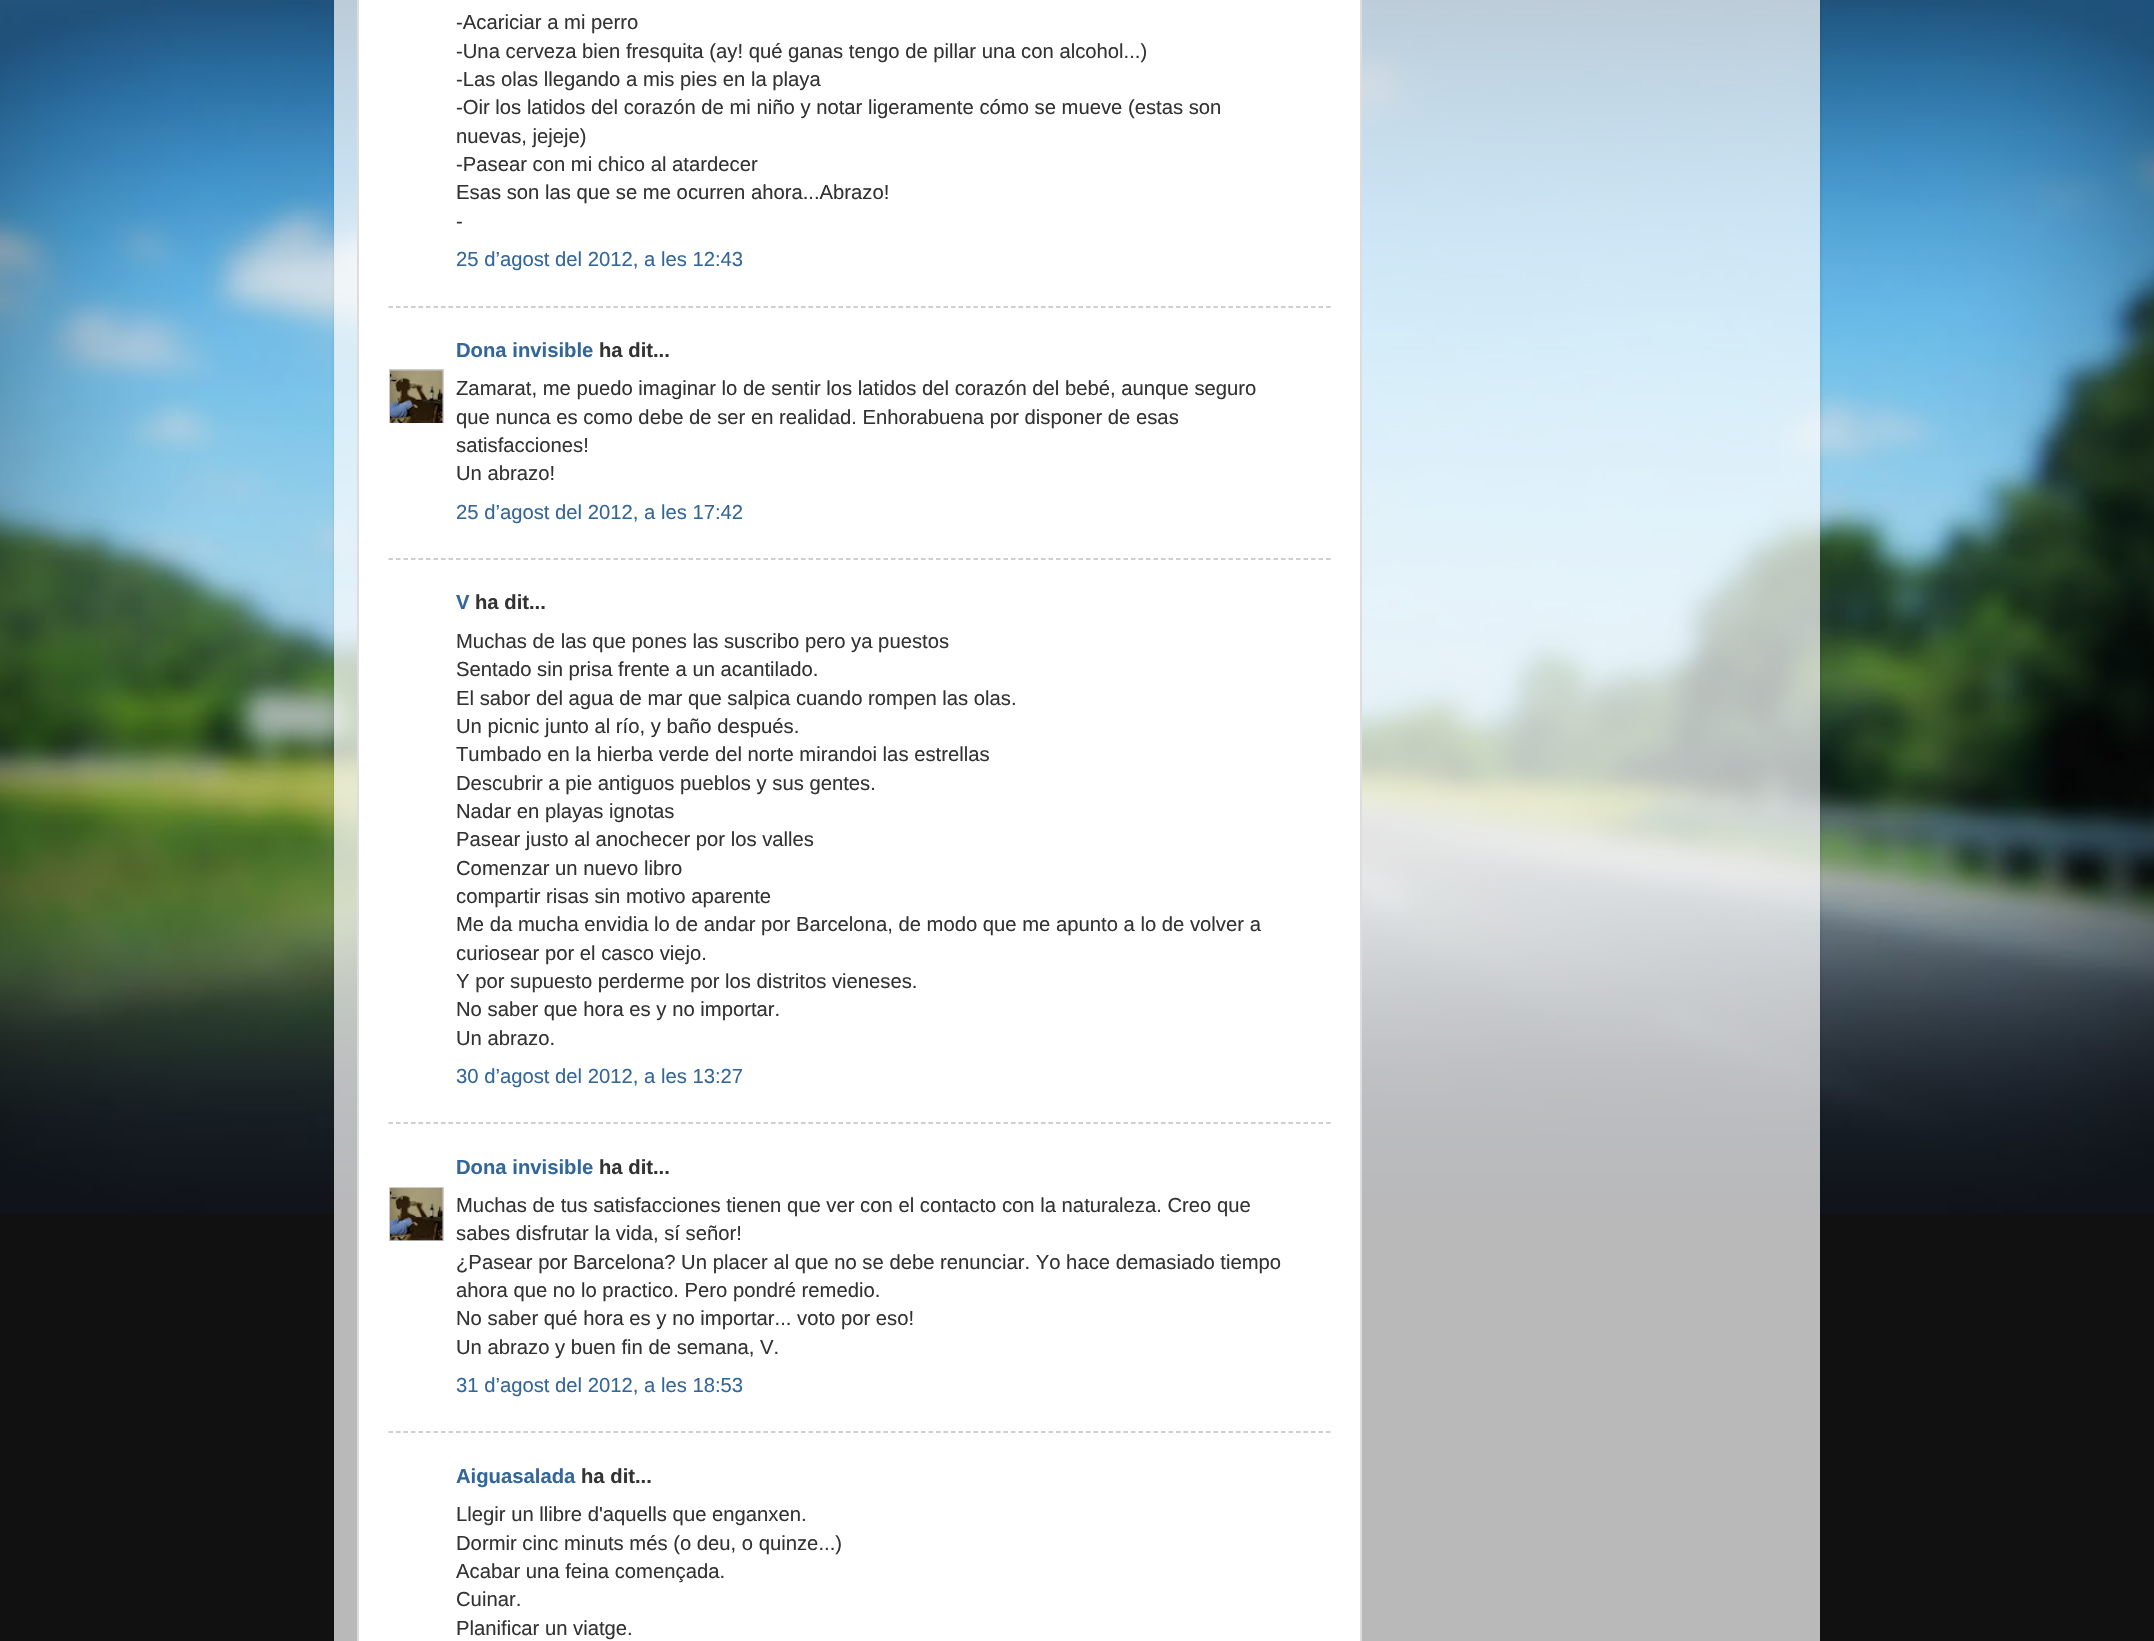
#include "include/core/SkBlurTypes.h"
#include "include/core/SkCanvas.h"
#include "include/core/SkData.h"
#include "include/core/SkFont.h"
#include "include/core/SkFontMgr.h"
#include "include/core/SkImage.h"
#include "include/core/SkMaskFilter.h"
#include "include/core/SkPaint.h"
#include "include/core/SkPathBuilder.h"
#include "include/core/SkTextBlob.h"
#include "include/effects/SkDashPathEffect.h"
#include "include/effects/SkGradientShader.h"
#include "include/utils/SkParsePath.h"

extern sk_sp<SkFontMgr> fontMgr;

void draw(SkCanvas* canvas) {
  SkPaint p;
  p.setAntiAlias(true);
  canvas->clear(SkColorSetRGB(17, 17, 17));
  canvas->drawImageRect(SkImages::DeferredFromEncodedData(SkData::MakeFromFileName("images/1.png")), SkRect::MakeLTRB(0, 0, 2154, 1214), SkSamplingOptions());
  canvas->save();
  canvas->clipPath(SkPathBuilder(SkPathFillType::kEvenOdd).moveTo(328, 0).lineTo(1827, 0).lineTo(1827, 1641).lineTo(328, 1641).close().moveTo(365, -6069).lineTo(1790, -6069).cubicTo(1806.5f, -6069, 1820, -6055.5f, 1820, -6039).lineTo(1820, 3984).lineTo(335, 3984).lineTo(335, -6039).cubicTo(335, -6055.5f, 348.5f, -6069, 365, -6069).close().detach(), true);
  p.setColor(SkColorSetARGB(38, 0, 0, 0));
  p.setMaskFilter(SkMaskFilter::MakeBlur(kNormal_SkBlurStyle, 2));
  canvas->drawRoundRect(SkRect::MakeLTRB(335, -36, 1820, 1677), 30, 30, p);
  p.setMaskFilter(nullptr);
  canvas->restore();
  p.setColor(SkColorSetARGB(179, 255, 255, 255));
  canvas->drawRect(SkRect::MakeLTRB(334, 0, 1820, 1641), p);
  p.setColor(SK_ColorWHITE);
  canvas->drawRect(SkRect::MakeLTRB(358, -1, 1361, 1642), p);
  p.setStyle(SkPaint::kStroke_Style);
  p.setStrokeWidth(2);
  p.setColor(SkColorSetRGB(221, 221, 221));
  canvas->drawRect(SkRect::MakeLTRB(358, -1, 1361, 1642), p);
  p.setStrokeWidth(1.5f);
  p.setColor(SkColorSetRGB(192, 192, 192));
  p.setPathEffect(SkDashPathEffect::Make({{4.5f, 3}}, 0));
  canvas->drawPath(SkPathBuilder().moveTo(388.5f, 307).lineTo(1330.5f, 307).detach(), p);
  p.setPathEffect(nullptr);
  canvas->save();
  canvas->clipRect(SkRect::MakeLTRB(389, 369, 444, 423));
  p.setStrokeWidth(2);
  p.setColor(SkColorSetRGB(204, 204, 204));
  canvas->drawRect(SkRect::MakeLTRB(390, 370, 443, 424), p);
  canvas->restore();
  canvas->drawImageRect(SkImages::DeferredFromEncodedData(SkData::MakeFromFileName("images/2.png")), SkRect::MakeLTRB(390, 370, 443, 423), SkSamplingOptions());
  p.setStrokeWidth(1.5f);
  p.setColor(SkColorSetRGB(192, 192, 192));
  p.setPathEffect(SkDashPathEffect::Make({{4.5f, 3}}, 0));
  canvas->drawPath(SkPathBuilder().moveTo(388.5f, 559).lineTo(1330.5f, 559).detach(), p);
  p.setPathEffect(nullptr);
  p.setPathEffect(SkDashPathEffect::Make({{4.5f, 3}}, 0));
  canvas->drawPath(SkPathBuilder().moveTo(388.5f, 1123).lineTo(1330.5f, 1123).detach(), p);
  p.setPathEffect(nullptr);
  canvas->save();
  canvas->clipRect(SkRect::MakeLTRB(389, 1187, 444, 1241));
  p.setStrokeWidth(2);
  p.setColor(SkColorSetRGB(204, 204, 204));
  canvas->drawRect(SkRect::MakeLTRB(390, 1188, 443, 1241), p);
  canvas->restore();
  canvas->drawImageRect(SkImages::DeferredFromEncodedData(SkData::MakeFromFileName("images/3.png")), SkRect::MakeLTRB(390, 1188, 443, 1241), SkSamplingOptions());
  p.setStrokeWidth(1.5f);
  p.setColor(SkColorSetRGB(192, 192, 192));
  p.setPathEffect(SkDashPathEffect::Make({{4.5f, 3}}, 0));
  canvas->drawPath(SkPathBuilder().moveTo(388.5f, 1432).lineTo(1330.5f, 1432).detach(), p);
  p.setPathEffect(nullptr);
  SkFont font1(fontMgr->matchFamilyStyle("Liberation Sans", SkFontStyle::Normal()), 20.25f);
  font1.setSubpixel(true);
  p.setStyle(SkPaint::kFill_Style);
  p.setColor(SkColorSetRGB(51, 51, 51));
  canvas->drawString("-Acariciar a mi perro", 456, 29, font1, p);
  canvas->drawString("-Una cerveza bien fresquita (ay! qué ganas tengo de pillar una con alcohol...)", 456, 58, font1, p);
  canvas->drawString("-Las olas llegando a mis pies en la playa", 456, 86, font1, p);
  canvas->drawString("-Oir los latidos del corazón de mi niño y notar ligeramente cómo se mueve (estas son", 456, 114, font1, p);
  canvas->drawString("nuevas, jejeje)", 456, 143, font1, p);
  canvas->drawString("-Pasear con mi chico al atardecer", 456, 171, font1, p);
  canvas->drawString("Esas son las que se me ocurren ahora...Abrazo!", 456, 199, font1, p);
  canvas->drawString("-", 456, 228, font1, p);
  p.setColor(SkColorSetRGB(51, 102, 153));
  canvas->drawString("25 d’agost del 2012, a les 12:43", 456, 266, font1, p);
  SkFont font2(fontMgr->matchFamilyStyle("Liberation Sans", SkFontStyle::Bold()), 20.25f);
  font2.setSubpixel(true);
  canvas->drawString("Dona invisible", 456, 357, font2, p);
  p.setColor(SkColorSetRGB(51, 51, 51));
  canvas->drawString("ha dit...", 599, 357, font2, p);
  canvas->drawString("Zamarat, me puedo imaginar lo de sentir los latidos del corazón del bebé, aunque seguro", 456, 395, font1, p);
  canvas->drawString("que nunca es como debe de ser en realidad. Enhorabuena por disponer de esas", 456, 424, font1, p);
  canvas->drawString("satisfacciones!", 456, 452, font1, p);
  canvas->drawString("Un abrazo!", 456, 480, font1, p);
  p.setColor(SkColorSetRGB(51, 102, 153));
  canvas->drawString("25 d’agost del 2012, a les 17:42", 456, 519, font1, p);
  canvas->drawString("V", 456, 609, font2, p);
  p.setColor(SkColorSetRGB(51, 51, 51));
  canvas->drawString("ha dit...", 475, 609, font2, p);
  canvas->drawString("Muchas de las que pones las suscribo pero ya puestos", 456, 648, font1, p);
  canvas->drawString("Sentado sin prisa frente a un acantilado.", 456, 676, font1, p);
  canvas->drawString("El sabor del agua de mar que salpica cuando rompen las olas.", 456, 705, font1, p);
  canvas->drawString("Un picnic junto al río, y baño después.", 456, 733, font1, p);
  canvas->drawString("Tumbado en la hierba verde del norte mirandoi las estrellas", 456, 761, font1, p);
  canvas->drawString("Descubrir a pie antiguos pueblos y sus gentes.", 456, 790, font1, p);
  canvas->drawString("Nadar en playas ignotas", 456, 818, font1, p);
  canvas->drawString("Pasear justo al anochecer por los valles", 456, 846, font1, p);
  canvas->drawString("Comenzar un nuevo libro", 456, 875, font1, p);
  canvas->drawString("compartir risas sin motivo aparente", 456, 903, font1, p);
  canvas->drawString("Me da mucha envidia lo de andar por Barcelona, de modo que me apunto a lo de volver a", 456, 931, font1, p);
  canvas->drawString("curiosear por el casco viejo.", 456, 960, font1, p);
  canvas->drawString("Y por supuesto perderme por los distritos vieneses.", 456, 988, font1, p);
  canvas->drawString("No saber que hora es y no importar.", 456, 1016, font1, p);
  canvas->drawString("Un abrazo.", 456, 1045, font1, p);
  p.setColor(SkColorSetRGB(51, 102, 153));
  canvas->drawString("30 d’agost del 2012, a les 13:27", 456, 1083, font1, p);
  canvas->drawString("Dona invisible", 456, 1174, font2, p);
  p.setColor(SkColorSetRGB(51, 51, 51));
  canvas->drawString("ha dit...", 599, 1174, font2, p);
  canvas->drawString("Muchas de tus satisfacciones tienen que ver con el contacto con la naturaleza. Creo que", 456, 1212, font1, p);
  canvas->drawString("sabes disfrutar la vida, sí señor!", 456, 1240, font1, p);
  canvas->drawString("¿Pasear por Barcelona? Un placer al que no se debe renunciar. Yo hace demasiado tiempo", 456, 1269, font1, p);
  canvas->drawString("ahora que no lo practico. Pero pondré remedio.", 456, 1297, font1, p);
  canvas->drawString("No saber qué hora es y no importar... voto por eso!", 456, 1325, font1, p);
  canvas->drawString("Un abrazo y buen fin de semana, V.", 456, 1354, font1, p);
  p.setColor(SkColorSetRGB(51, 102, 153));
  canvas->drawString("31 d’agost del 2012, a les 18:53", 456, 1392, font1, p);
  canvas->drawString("Aiguasalada", 456, 1483, font2, p);
  p.setColor(SkColorSetRGB(51, 51, 51));
  canvas->drawString("ha dit...", 581, 1483, font2, p);
  canvas->drawString("Llegir un llibre d'aquells que enganxen.", 456, 1521, font1, p);
  canvas->drawString("Dormir cinc minuts més (o deu, o quinze...)", 456, 1550, font1, p);
  canvas->drawString("Acabar una feina començada.", 456, 1578, font1, p);
  canvas->drawString("Cuinar.", 456, 1606, font1, p);
  canvas->drawString("Planificar un viatge.", 456, 1635, font1, p);
}
